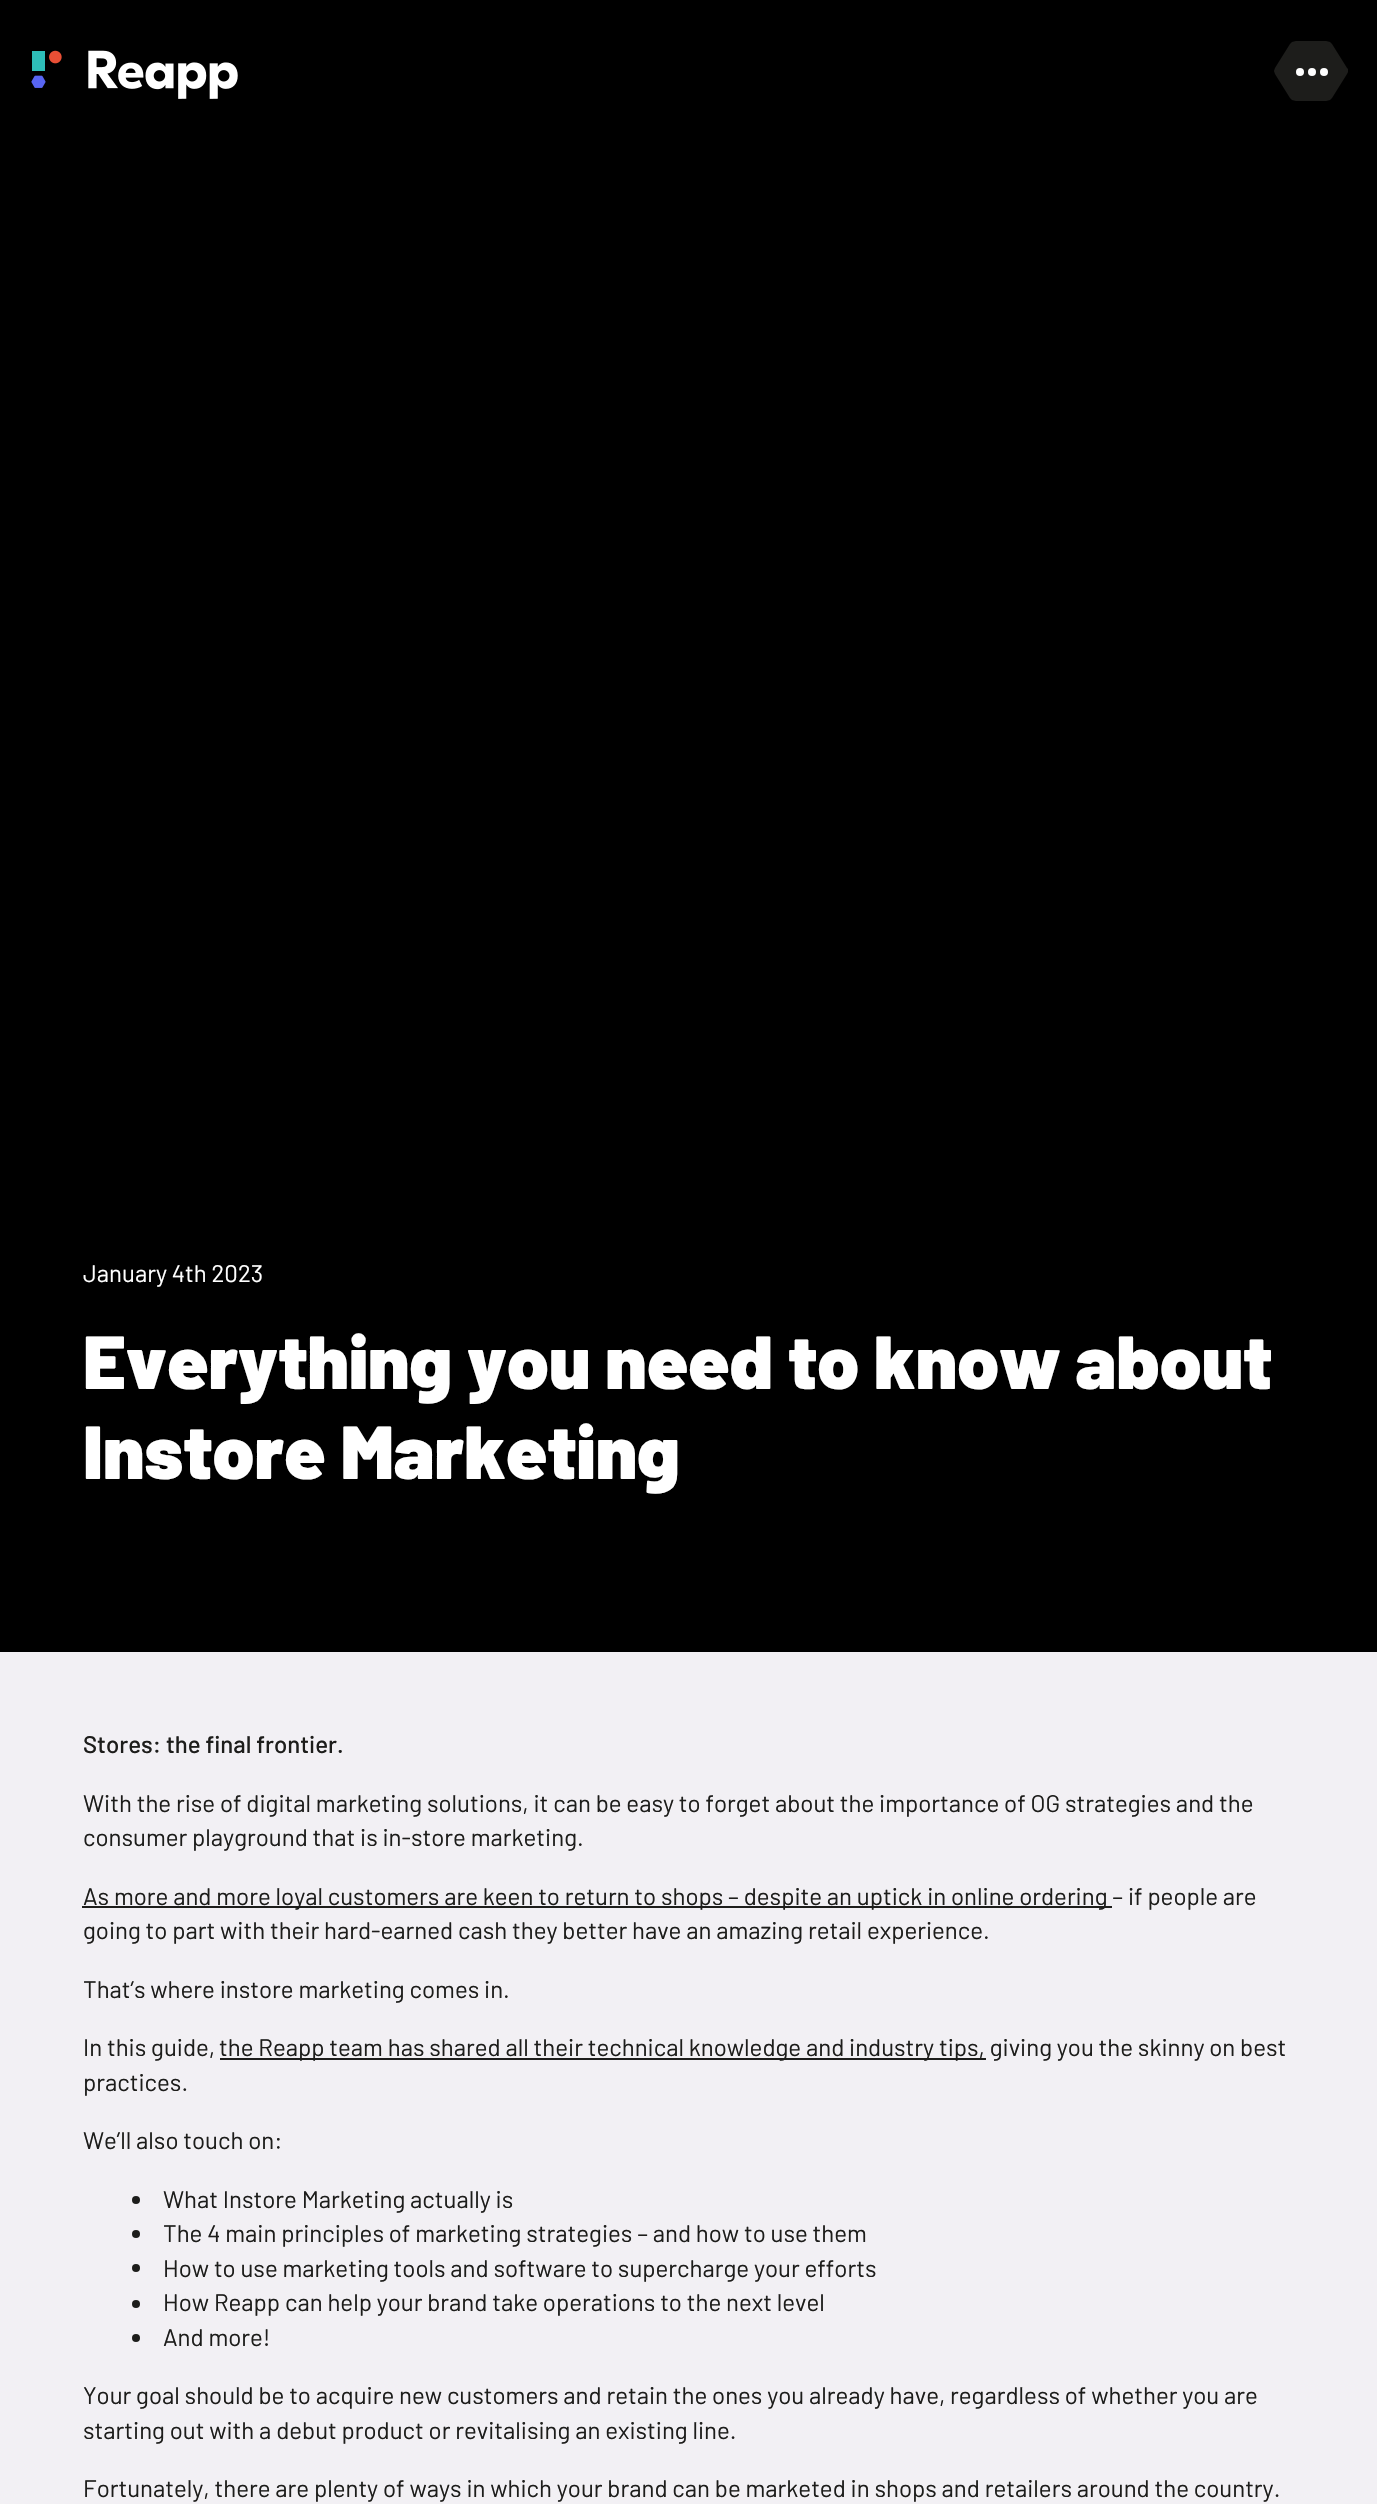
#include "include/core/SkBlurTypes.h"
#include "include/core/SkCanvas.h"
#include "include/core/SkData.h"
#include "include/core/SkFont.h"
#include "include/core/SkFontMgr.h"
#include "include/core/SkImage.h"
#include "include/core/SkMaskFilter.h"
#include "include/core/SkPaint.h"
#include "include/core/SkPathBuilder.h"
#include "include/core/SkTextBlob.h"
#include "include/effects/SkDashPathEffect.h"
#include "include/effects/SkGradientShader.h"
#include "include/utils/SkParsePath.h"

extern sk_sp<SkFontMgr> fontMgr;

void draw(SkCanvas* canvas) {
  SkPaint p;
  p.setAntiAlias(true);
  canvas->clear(SkColorSetRGB(242, 240, 244));
  p.setColor(SK_ColorBLACK);
  canvas->drawRect(SkRect::MakeLTRB(0, 0, 1377, 1652), p);
  canvas->drawImageRect(SkImages::DeferredFromEncodedData(SkData::MakeFromFileName("images/1.png")), SkRect::MakeLTRB(31, 50, 62, 88), SkSamplingOptions());
  canvas->drawImageRect(SkImages::DeferredFromEncodedData(SkData::MakeFromFileName("images/2.png")), SkRect::MakeLTRB(88, 50, 238, 99), SkSamplingOptions());
  p.setColor(SkColorSetRGB(29, 29, 27));
  canvas->drawPath(SkPathBuilder().moveTo(1347, 68).lineTo(1332, 44).lineTo(1330, 42).lineTo(1326, 41).lineTo(1296, 41).lineTo(1292, 42).lineTo(1290, 44).lineTo(1275, 68).lineTo(1274, 71).lineTo(1275, 74).lineTo(1290, 98).lineTo(1292, 100).lineTo(1296, 101).lineTo(1326, 101).lineTo(1330, 100).lineTo(1332, 98).lineTo(1347, 74).lineTo(1348, 72).lineTo(1348, 69).close().detach(), p);
  p.setColor(SK_ColorWHITE);
  canvas->drawCircle(1300, 72, 4, p);
  canvas->drawCircle(1312, 72, 4, p);
  canvas->drawCircle(1324, 72, 4, p);
  p.setColor(SkColorSetRGB(29, 29, 27));
  canvas->drawRect(SkRect::MakeLTRB(82, 1906, 1112, 1908), p);
  canvas->drawRect(SkRect::MakeLTRB(220, 2058, 986, 2060), p);
  canvas->drawCircle(136, 2200, 4, p);
  canvas->drawCircle(136, 2234, 4, p);
  canvas->drawCircle(136, 2268, 4, p);
  canvas->drawCircle(136, 2304, 4, p);
  canvas->drawCircle(136, 2338, 4, p);
  SkFont font1(fontMgr->matchFamilyStyle("Barlow", SkFontStyle::Normal()), 24);
  font1.setSubpixel(true);
  p.setColor(SK_ColorWHITE);
  canvas->drawString("January 4th 2023", 83, 1282, font1, p);
  SkFont font2(fontMgr->matchFamilyStyle("Barlow", SkFontStyle(900, SkFontStyle::kNormal_Width, SkFontStyle::kUpright_Slant)), 75);
  font2.setSubpixel(true);
  canvas->drawString("Everything you need to know about", 83, 1389, font2, p);
  canvas->drawString("Instore Marketing", 83, 1479, font2, p);
  SkFont font3(fontMgr->matchFamilyStyle("Barlow", SkFontStyle(500, SkFontStyle::kNormal_Width, SkFontStyle::kUpright_Slant)), 24);
  font3.setSubpixel(true);
  p.setColor(SkColorSetRGB(29, 29, 27));
  canvas->drawString("Stores: the final frontier.", 83, 1753, font3, p);
  canvas->drawString("With the rise of digital marketing solutions, it can be easy to forget about the importance of OG strategies and the", 83, 1812, font1, p);
  canvas->drawString("consumer playground that is in-store marketing.", 83, 1846, font1, p);
  canvas->drawString("As more and more loyal customers are keen to return to shops – despite an uptick in online ordering – if people are", 83, 1905, font1, p);
  canvas->drawString("going to part with their hard-earned cash they better have an amazing retail experience.", 83, 1939, font1, p);
  canvas->drawString("That’s where instore marketing comes in.", 83, 1998, font1, p);
  canvas->drawString("In this guide,", 83, 2056, font1, p);
  canvas->drawString("the Reapp team has shared all their technical knowledge and industry tips, giving you the skinny on best", 219, 2056, font1, p);
  canvas->drawString("practices.", 83, 2091, font1, p);
  canvas->drawString("We’ll also touch on:", 83, 2149, font1, p);
  canvas->drawString("What Instore Marketing actually is", 163, 2208, font1, p);
  canvas->drawString("The 4 main principles of marketing strategies – and how to use them", 163, 2242, font1, p);
  canvas->drawString("How to use marketing tools and software to supercharge your efforts", 163, 2277, font1, p);
  canvas->drawString("How Reapp can help your brand take operations to the next level", 163, 2311, font1, p);
  canvas->drawString("And more!", 163, 2346, font1, p);
  canvas->drawString("Your goal should be to acquire new customers and retain the ones you already have, regardless of whether you are", 83, 2404, font1, p);
  canvas->drawString("starting out with a debut product or revitalising an existing line.", 83, 2439, font1, p);
  canvas->drawString("Fortunately, there are plenty of ways in which your brand can be marketed in shops and retailers around the country.", 83, 2497, font1, p);
}
